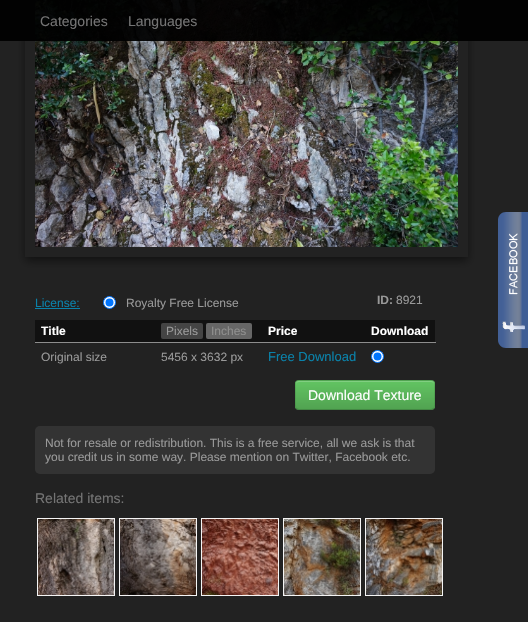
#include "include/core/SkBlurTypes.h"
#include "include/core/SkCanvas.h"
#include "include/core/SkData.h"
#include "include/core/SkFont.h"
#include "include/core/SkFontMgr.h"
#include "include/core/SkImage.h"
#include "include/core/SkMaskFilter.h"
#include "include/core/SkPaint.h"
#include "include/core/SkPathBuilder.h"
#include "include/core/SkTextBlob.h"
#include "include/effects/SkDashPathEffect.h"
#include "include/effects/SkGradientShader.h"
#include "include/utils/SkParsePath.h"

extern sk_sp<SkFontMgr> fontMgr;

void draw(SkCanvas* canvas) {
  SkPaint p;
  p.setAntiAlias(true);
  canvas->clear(SkColorSetRGB(34, 34, 34));
  canvas->save();
  canvas->clipPath(SkPathBuilder(SkPathFillType::kEvenOdd).moveTo(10, 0).lineTo(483, 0).lineTo(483, 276).lineTo(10, 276).close().moveTo(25, -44).lineTo(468, -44).lineTo(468, 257).lineTo(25, 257).close().detach(), true);
  p.setColor(SkColorSetRGB(17, 17, 17));
  p.setMaskFilter(SkMaskFilter::MakeBlur(kNormal_SkBlurStyle, 4.5f));
  canvas->drawRect(SkRect::MakeLTRB(25, -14, 468, 261), p);
  p.setMaskFilter(nullptr);
  canvas->restore();
  canvas->drawImageRect(SkImages::DeferredFromEncodedData(SkData::MakeFromFileName("images/2.png")), SkRect::MakeLTRB(35, 0, 458, 247), SkSamplingOptions());
  p.setColor(SkColorSetARGB(242, 0, 0, 0));
  canvas->drawRect(SkRect::MakeLTRB(0, 0, 528, 41), p);
  p.setColor(SkColorSetRGB(57, 89, 148));
  canvas->drawPath(SkPathBuilder().moveTo(506, 212).lineTo(528, 212).lineTo(528, 348).lineTo(506, 348).cubicTo(501.5f, 348, 498, 344.5f, 498, 340).lineTo(498, 220).cubicTo(498, 215.5f, 501.5f, 212, 506, 212).close().detach(), p);
  canvas->drawImageRect(SkImages::DeferredFromEncodedData(SkData::MakeFromFileName("images/1.png")), SkRect::MakeLTRB(498, 212, 528, 348), SkSamplingOptions());
  p.setColor(SkColorSetRGB(10, 130, 170));
  canvas->drawRect(SkRect::MakeLTRB(35, 308, 80, 309), p);
  p.setColor(SK_ColorWHITE);
  canvas->drawCircle(109.5f, 302.5f, 6, p);
  p.setStyle(SkPaint::kStroke_Style);
  p.setStrokeWidth(1);
  p.setColor(SkColorSetRGB(0, 117, 255));
  canvas->drawCircle(109.5f, 302.5f, 6, p);
  p.setStyle(SkPaint::kFill_Style);
  canvas->drawCircle(109.5f, 302.5f, 4, p);
  p.setColor(SkColorSetRGB(17, 17, 17));
  canvas->drawRect(SkRect::MakeLTRB(35, 320, 435, 342), p);
  p.setColor(SkColorSetRGB(68, 68, 68));
  canvas->drawRoundRect(SkRect::MakeLTRB(161, 323, 203, 339), 2, 2, p);
  p.setColor(SkColorSetRGB(102, 102, 102));
  canvas->drawRoundRect(SkRect::MakeLTRB(206, 323, 252, 339), 2, 2, p);
  p.setColor(SkColorSetRGB(141, 141, 141));
  canvas->drawRect(SkRect::MakeLTRB(35, 342, 436, 343), p);
  p.setColor(SK_ColorWHITE);
  canvas->drawCircle(377.5f, 356.5f, 6, p);
  p.setStyle(SkPaint::kStroke_Style);
  p.setColor(SkColorSetRGB(0, 117, 255));
  canvas->drawCircle(377.5f, 356.5f, 6, p);
  p.setStyle(SkPaint::kFill_Style);
  canvas->drawCircle(377.5f, 356.5f, 4, p);
  p.setColor(SkColorSetRGB(91, 183, 91));
  canvas->drawRoundRect(SkRect::MakeLTRB(295, 380, 435, 410), 4, 4, p);
  canvas->save();
  canvas->clipPath(SkPathBuilder().moveTo(299, 380).lineTo(431, 380).cubicTo(433, 380, 435, 382, 435, 384).lineTo(435, 406).cubicTo(435, 408, 433, 410, 431, 410).lineTo(299, 410).cubicTo(297, 410, 295, 408, 295, 406).lineTo(295, 384).cubicTo(295, 382, 297, 380, 299, 380).close().detach(), true);
  {
    const SkColor colors[] = {SkColorSetRGB(98, 196, 98), SkColorSetRGB(81, 163, 81)};
    const float stops[] = {0, 1};
    const SkPoint ends[] = {{365, 381}, {365, 409}};
    p.setShader(SkGradientShader::MakeLinear(ends, colors, stops, 2, SkTileMode::kClamp));
    p.setAlpha(255);
  }
  canvas->drawRect(SkRect::MakeLTRB(295, 381, 435, 409), p);
  canvas->restore();
  p.setShader(nullptr);
  p.setColor(SkColorSetRGB(129, 207, 129));
  canvas->drawPath(SkPathBuilder().moveTo(299, 382).lineTo(431, 382).cubicTo(433, 382, 434, 383, 434, 385).cubicTo(434, 383, 434, 381, 432, 381).lineTo(298, 381).cubicTo(296, 381, 296, 383, 296, 385).cubicTo(296, 383, 297, 382, 299, 382).close().detach(), p);
  p.setStyle(SkPaint::kStroke_Style);
  p.setColor(SkColorSetARGB(64, 0, 0, 0));
  canvas->drawPath(SkPathBuilder().moveTo(433.5f, 408.5f).cubicTo(433, 409, 432, 409.5f, 431, 409.5f).lineTo(299, 409.5f).cubicTo(298, 409.5f, 297, 409, 296.5f, 408.5f).detach(), p);
  p.setColor(SkColorSetARGB(26, 0, 0, 0));
  canvas->drawPath(SkPathBuilder().moveTo(296.5f, 408.5f).cubicTo(294.5f, 406.5f, 295.5f, 398, 295.5f, 395).lineTo(295.5f, 387.5f).cubicTo(295.5f, 385, 295, 380.5f, 299, 380.5f).lineTo(431, 380.5f).cubicTo(435, 380.5f, 434.5f, 385, 434.5f, 387.5f).lineTo(434.5f, 395).cubicTo(434.5f, 398, 435.5f, 406.5f, 433.5f, 408.5f).detach(), p);
  p.setStyle(SkPaint::kFill_Style);
  p.setColor(SkColorSetRGB(51, 51, 51));
  canvas->drawRoundRect(SkRect::MakeLTRB(35, 426, 435, 474), 5, 5, p);
  canvas->drawImageRect(SkImages::DeferredFromEncodedData(SkData::MakeFromFileName("images/3.png")), SkRect::MakeLTRB(38, 519, 114, 595), SkSamplingOptions());
  p.setStyle(SkPaint::kStroke_Style);
  p.setColor(SkColorSetRGB(245, 245, 245));
  canvas->drawRect(SkRect::MakeLTRB(37.5f, 518.5f, 114.5f, 595.5f), p);
  canvas->drawImageRect(SkImages::DeferredFromEncodedData(SkData::MakeFromFileName("images/4.png")), SkRect::MakeLTRB(120, 519, 196, 595), SkSamplingOptions());
  canvas->drawRect(SkRect::MakeLTRB(119.5f, 518.5f, 196.5f, 595.5f), p);
  canvas->drawImageRect(SkImages::DeferredFromEncodedData(SkData::MakeFromFileName("images/5.png")), SkRect::MakeLTRB(202, 519, 278, 595), SkSamplingOptions());
  canvas->drawRect(SkRect::MakeLTRB(201.5f, 518.5f, 278.5f, 595.5f), p);
  canvas->drawImageRect(SkImages::DeferredFromEncodedData(SkData::MakeFromFileName("images/6.png")), SkRect::MakeLTRB(284, 519, 360, 595), SkSamplingOptions());
  canvas->drawRect(SkRect::MakeLTRB(283.5f, 518.5f, 360.5f, 595.5f), p);
  canvas->drawImageRect(SkImages::DeferredFromEncodedData(SkData::MakeFromFileName("images/7.png")), SkRect::MakeLTRB(366, 519, 442, 595), SkSamplingOptions());
  canvas->drawRect(SkRect::MakeLTRB(365.5f, 518.5f, 442.5f, 595.5f), p);
  SkFont font1(fontMgr->matchFamilyStyle("Liberation Sans", SkFontStyle::Normal()), 14);
  font1.setSubpixel(true);
  p.setStyle(SkPaint::kFill_Style);
  p.setColor(SkColorSetRGB(116, 116, 116));
  canvas->drawString("Categories", 40, 26, font1, p);
  canvas->drawString("Languages", 128, 26, font1, p);
  SkFont font2(fontMgr->matchFamilyStyle("Liberation Sans", SkFontStyle::Normal()), 12);
  font2.setSubpixel(true);
  p.setColor(SkColorSetRGB(10, 130, 170));
  canvas->drawString("License:", 35, 307, font2, p);
  p.setColor(SkColorSetRGB(153, 153, 153));
  canvas->drawString("Royalty Free License", 126, 307, font2, p);
  SkFont font3(fontMgr->matchFamilyStyle("Liberation Sans", SkFontStyle::Bold()), 12);
  font3.setSubpixel(true);
  canvas->drawString("ID:", 377, 304, font3, p);
  canvas->drawString("8921", 396, 304, font2, p);
  p.setColor(SK_ColorWHITE);
  canvas->drawString("Title", 41, 335, font3, p);
  p.setColor(SkColorSetRGB(153, 153, 153));
  canvas->drawString("Pixels", 166, 335, font2, p);
  p.setColor(SkColorSetRGB(143, 143, 142));
  canvas->drawString("Inches", 211, 335, font2, p);
  p.setColor(SK_ColorWHITE);
  canvas->drawString("Price", 268, 335, font3, p);
  canvas->drawString("Download", 371, 335, font3, p);
  p.setColor(SkColorSetRGB(153, 153, 153));
  canvas->drawString("Original size", 41, 361, font2, p);
  canvas->drawString("5456 x 3632 px", 161, 361, font2, p);
  SkFont font4(fontMgr->matchFamilyStyle("Liberation Sans", SkFontStyle::Normal()), 13);
  font4.setSubpixel(true);
  p.setColor(SkColorSetRGB(10, 130, 170));
  canvas->drawString("Free Download", 268, 361, font4, p);
  p.setColor(SK_ColorWHITE);
  canvas->drawString("Download Texture", 308, 400, font1, p);
  p.setColor(SkColorSetRGB(153, 153, 153));
  canvas->drawString("Not for resale or redistribution. This is a free service, all we ask is that", 45, 447, font2, p);
  canvas->drawString("you credit us in some way. Please mention on Twitter, Facebook etc.", 45, 461, font2, p);
  p.setColor(SkColorSetRGB(116, 116, 116));
  canvas->drawString("Related items:", 35, 503, font1, p);
}
